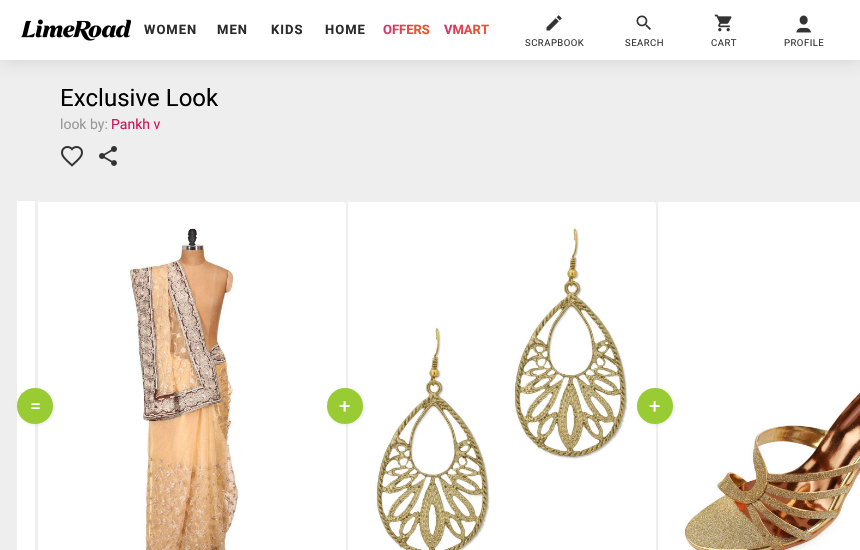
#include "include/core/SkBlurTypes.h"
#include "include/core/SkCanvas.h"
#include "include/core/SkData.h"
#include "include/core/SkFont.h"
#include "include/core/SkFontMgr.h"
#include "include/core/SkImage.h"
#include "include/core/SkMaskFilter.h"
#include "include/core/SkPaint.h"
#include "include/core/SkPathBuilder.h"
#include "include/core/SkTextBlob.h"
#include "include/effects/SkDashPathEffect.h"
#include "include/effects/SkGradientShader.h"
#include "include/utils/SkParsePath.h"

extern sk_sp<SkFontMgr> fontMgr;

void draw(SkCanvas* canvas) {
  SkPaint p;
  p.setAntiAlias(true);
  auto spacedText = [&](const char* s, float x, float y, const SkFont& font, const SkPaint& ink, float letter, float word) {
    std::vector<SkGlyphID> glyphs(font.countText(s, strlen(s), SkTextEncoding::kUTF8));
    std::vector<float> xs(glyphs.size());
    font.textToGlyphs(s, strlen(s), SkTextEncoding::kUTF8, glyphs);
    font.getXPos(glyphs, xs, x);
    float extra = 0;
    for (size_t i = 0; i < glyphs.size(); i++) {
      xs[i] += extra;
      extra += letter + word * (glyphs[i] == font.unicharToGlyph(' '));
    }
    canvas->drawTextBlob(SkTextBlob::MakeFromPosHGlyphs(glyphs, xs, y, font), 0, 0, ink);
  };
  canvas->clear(SkColorSetRGB(238, 238, 238));
  p.setColor(SkColorSetARGB(41, 85, 85, 85));
  p.setMaskFilter(SkMaskFilter::MakeBlur(kNormal_SkBlurStyle, 8));
  canvas->drawRect(SkRect::MakeLTRB(0, 2, 860, 62), p);
  p.setMaskFilter(nullptr);
  p.setColor(SK_ColorWHITE);
  canvas->drawRect(SkRect::MakeLTRB(0, 0, 860, 60), p);
  canvas->drawImageRect(SkImages::DeferredFromEncodedData(SkData::MakeFromFileName("images/1.png")), SkRect::MakeLTRB(21, 19, 131, 41), SkSamplingOptions());
  canvas->drawImageRect(SkImages::DeferredFromEncodedData(SkData::MakeFromFileName("images/2.png")), SkRect::MakeLTRB(546, 15, 562, 31), SkSamplingOptions());
  canvas->drawImageRect(SkImages::DeferredFromEncodedData(SkData::MakeFromFileName("images/3.png")), SkRect::MakeLTRB(636, 15, 651, 30), SkSamplingOptions());
  canvas->drawImageRect(SkImages::DeferredFromEncodedData(SkData::MakeFromFileName("images/4.png")), SkRect::MakeLTRB(714, 14, 732, 32), SkSamplingOptions());
  canvas->drawImageRect(SkImages::DeferredFromEncodedData(SkData::MakeFromFileName("images/5.png")), SkRect::MakeLTRB(796, 15, 811, 33), SkSamplingOptions());
  canvas->drawImageRect(SkImages::DeferredFromEncodedData(SkData::MakeFromFileName("images/6.png")), SkRect::MakeLTRB(61, 146, 83, 167), SkSamplingOptions());
  canvas->drawImageRect(SkImages::DeferredFromEncodedData(SkData::MakeFromFileName("images/7.png")), SkRect::MakeLTRB(99, 146, 117, 166), SkSamplingOptions());
  canvas->drawRect(SkRect::MakeLTRB(17, 201, 35, 550), p);
  canvas->drawPath(SkPathBuilder().moveTo(40, 200).lineTo(342, 200).cubicTo(344, 200, 346, 202, 346, 204).lineTo(346, 550).lineTo(36, 550).lineTo(36, 204).cubicTo(36, 202, 38, 200, 40, 200).close().detach(), p);
  p.setStyle(SkPaint::kStroke_Style);
  p.setStrokeWidth(1);
  p.setColor(SkColorSetRGB(238, 238, 238));
  canvas->drawRoundRect(SkRect::MakeLTRB(36.5f, 200.5f, 345.5f, 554.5f), 3.5f, 3.5f, p);
  canvas->drawRoundRect(SkRect::MakeLTRB(37.5f, 201.5f, 346.5f, 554.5f), 3.5f, 3.5f, p);
  canvas->drawImageRect(SkImages::DeferredFromEncodedData(SkData::MakeFromFileName("images/8.png")), SkRect::MakeLTRB(38, 202, 346, 550), SkSamplingOptions());
  p.setStyle(SkPaint::kFill_Style);
  p.setColor(SkColorSetARGB(13, 0, 0, 0));
  p.setMaskFilter(SkMaskFilter::MakeBlur(kNormal_SkBlurStyle, 1));
  canvas->drawRoundRect(SkRect::MakeLTRB(17, 388, 55, 426), 19, 19, p);
  p.setMaskFilter(nullptr);
  p.setColor(SkColorSetRGB(153, 204, 51));
  canvas->drawCircle(35, 406, 18, p);
  p.setColor(SK_ColorWHITE);
  canvas->drawPath(SkPathBuilder().moveTo(350, 200).lineTo(652, 200).cubicTo(654, 200, 656, 202, 656, 204).lineTo(656, 550).lineTo(346, 550).lineTo(346, 204).cubicTo(346, 202, 348, 200, 350, 200).close().detach(), p);
  p.setStyle(SkPaint::kStroke_Style);
  p.setColor(SkColorSetRGB(238, 238, 238));
  canvas->drawRoundRect(SkRect::MakeLTRB(346.5f, 200.5f, 655.5f, 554.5f), 3.5f, 3.5f, p);
  canvas->drawRoundRect(SkRect::MakeLTRB(347.5f, 201.5f, 656.5f, 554.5f), 3.5f, 3.5f, p);
  canvas->drawImageRect(SkImages::DeferredFromEncodedData(SkData::MakeFromFileName("images/9.png")), SkRect::MakeLTRB(348, 202, 656, 550), SkSamplingOptions());
  p.setStyle(SkPaint::kFill_Style);
  p.setColor(SkColorSetARGB(13, 0, 0, 0));
  p.setMaskFilter(SkMaskFilter::MakeBlur(kNormal_SkBlurStyle, 1));
  canvas->drawRoundRect(SkRect::MakeLTRB(327, 388, 365, 426), 19, 19, p);
  p.setMaskFilter(nullptr);
  p.setColor(SkColorSetRGB(153, 204, 51));
  canvas->drawCircle(345, 406, 18, p);
  p.setColor(SK_ColorWHITE);
  canvas->drawPath(SkPathBuilder().moveTo(660, 200).lineTo(860, 200).lineTo(860, 550).lineTo(656, 550).lineTo(656, 204).cubicTo(656, 202, 658, 200, 660, 200).close().detach(), p);
  p.setStyle(SkPaint::kStroke_Style);
  p.setColor(SkColorSetRGB(238, 238, 238));
  canvas->drawRoundRect(SkRect::MakeLTRB(656.5f, 200.5f, 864.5f, 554.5f), 3.5f, 3.5f, p);
  canvas->drawRoundRect(SkRect::MakeLTRB(657.5f, 201.5f, 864.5f, 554.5f), 3.5f, 3.5f, p);
  canvas->drawImageRect(SkImages::DeferredFromEncodedData(SkData::MakeFromFileName("images/10.png")), SkRect::MakeLTRB(658, 202, 860, 550), SkSamplingOptions());
  p.setStyle(SkPaint::kFill_Style);
  p.setColor(SkColorSetARGB(13, 0, 0, 0));
  p.setMaskFilter(SkMaskFilter::MakeBlur(kNormal_SkBlurStyle, 1));
  canvas->drawRoundRect(SkRect::MakeLTRB(637, 388, 675, 426), 19, 19, p);
  p.setMaskFilter(nullptr);
  p.setColor(SkColorSetRGB(153, 204, 51));
  canvas->drawCircle(655, 406, 18, p);
  SkFont font1(fontMgr->matchFamilyStyle("Roboto", SkFontStyle::Bold()), 13);
  font1.setSubpixel(true);
  p.setColor(SkColorSetRGB(42, 42, 42));
  spacedText("WOMEN", 144, 34, font1, p, 1, 0);
  spacedText("MEN", 217, 34, font1, p, 1, 0);
  spacedText("KIDS", 271, 34, font1, p, 1, 0);
  spacedText("HOME", 325, 34, font1, p, 1, 0);
  {
    const SkColor colors[] = {SkColorSetRGB(206, 41, 126), SkColorSetRGB(237, 81, 51)};
    const float stops[] = {0, 0.73f};
    const SkPoint ends[] = {{384, 15}, {426, 42}};
    p.setShader(SkGradientShader::MakeLinear(ends, colors, stops, 2, SkTileMode::kClamp));
    p.setAlpha(255);
  }
  canvas->drawString("OFFERS", 383, 34, font1, p);
  {
    const SkColor colors[] = {SkColorSetRGB(206, 41, 126), SkColorSetRGB(237, 81, 51)};
    const float stops[] = {0, 0.73f};
    const SkPoint ends[] = {{445, 16}, {485, 42}};
    p.setShader(SkGradientShader::MakeLinear(ends, colors, stops, 2, SkTileMode::kClamp));
    p.setAlpha(255);
  }
  canvas->drawString("VMART", 444, 34, font1, p);
  SkFont font2(fontMgr->matchFamilyStyle("Roboto", SkFontStyle::Normal()), 9.5f);
  font2.setSubpixel(true);
  p.setShader(nullptr);
  p.setColor(SkColorSetRGB(51, 51, 51));
  spacedText("SCRAPBOOK", 525, 46, font2, p, 0.5f, 0);
  spacedText("SEARCH", 625, 46, font2, p, 0.5f, 0);
  spacedText("CART", 711, 46, font2, p, 0.5f, 0);
  spacedText("PROFILE", 784, 46, font2, p, 0.5f, 0);
  SkFont font3(fontMgr->matchFamilyStyle("Roboto", SkFontStyle::Normal()), 24);
  font3.setSubpixel(true);
  p.setColor(SK_ColorBLACK);
  canvas->drawString("Exclusive Look", 60, 106, font3, p);
  SkFont font4(fontMgr->matchFamilyStyle("Roboto", SkFontStyle::Normal()), 14);
  font4.setSubpixel(true);
  p.setColor(SkColorSetRGB(153, 153, 153));
  canvas->drawString("look by:", 60, 129, font4, p);
  p.setColor(SkColorSetRGB(211, 20, 90));
  canvas->drawString("Pankh v", 111, 129, font4, p);
  SkFont font5(fontMgr->matchFamilyStyle("Roboto", SkFontStyle::Normal()), 20);
  font5.setSubpixel(true);
  p.setColor(SK_ColorWHITE);
  canvas->drawString("=", 30, 413, font5, p);
  canvas->drawString("+", 339, 413, font5, p);
  canvas->drawString("+", 649, 413, font5, p);
}
